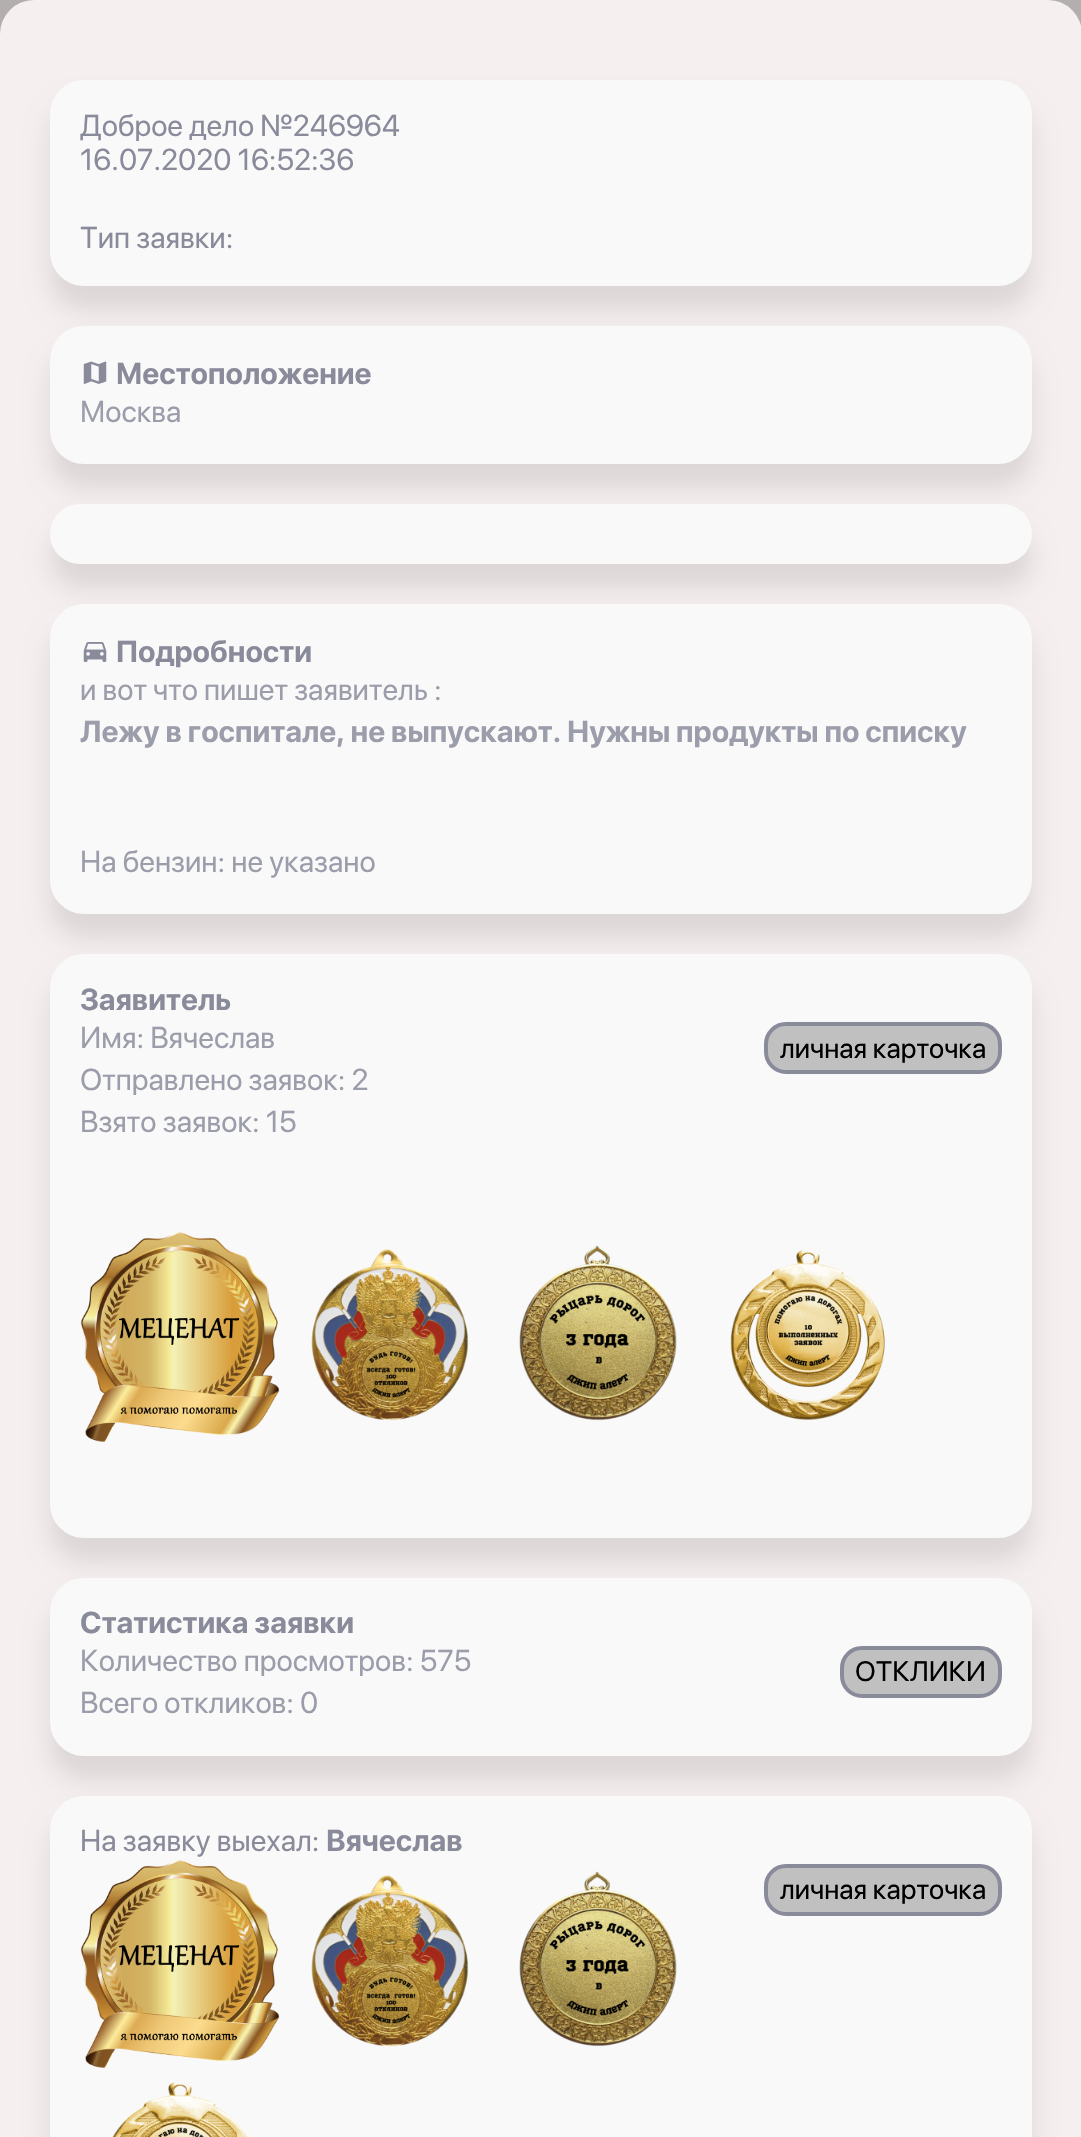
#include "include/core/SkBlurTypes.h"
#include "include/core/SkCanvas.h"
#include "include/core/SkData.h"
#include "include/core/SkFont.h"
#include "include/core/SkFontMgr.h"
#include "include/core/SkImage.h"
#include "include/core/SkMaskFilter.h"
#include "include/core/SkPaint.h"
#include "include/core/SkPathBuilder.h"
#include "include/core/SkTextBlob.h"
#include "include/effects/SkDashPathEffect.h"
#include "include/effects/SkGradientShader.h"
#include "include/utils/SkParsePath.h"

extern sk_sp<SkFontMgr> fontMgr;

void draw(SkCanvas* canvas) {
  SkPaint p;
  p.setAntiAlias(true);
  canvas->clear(SkColorSetRGB(180, 175, 175));
  p.setColor(SkColorSetRGB(246, 239, 239));
  canvas->drawRoundRect(SkRect::MakeLTRB(0, 0, 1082, 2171), 34, 34, p);
  p.setColor(SkColorSetARGB(26, 0, 0, 0));
  p.setMaskFilter(SkMaskFilter::MakeBlur(kNormal_SkBlurStyle, 12));
  canvas->drawRoundRect(SkRect::MakeLTRB(50, 104, 1032, 310), 34, 34, p);
  p.setMaskFilter(nullptr);
  p.setColor(SkColorSetRGB(249, 249, 249));
  canvas->drawRoundRect(SkRect::MakeLTRB(50, 80, 1032, 286), 34, 34, p);
  p.setColor(SkColorSetARGB(26, 0, 0, 0));
  p.setMaskFilter(SkMaskFilter::MakeBlur(kNormal_SkBlurStyle, 12));
  canvas->drawRoundRect(SkRect::MakeLTRB(50, 350, 1032, 488), 34, 34, p);
  p.setMaskFilter(nullptr);
  p.setColor(SkColorSetRGB(249, 249, 249));
  canvas->drawRoundRect(SkRect::MakeLTRB(50, 326, 1032, 464), 34, 34, p);
  canvas->drawImageRect(SkImages::DeferredFromEncodedData(SkData::MakeFromFileName("images/1.png")), SkRect::MakeLTRB(83, 361, 107, 384), SkSamplingOptions());
  p.setColor(SkColorSetARGB(26, 0, 0, 0));
  p.setMaskFilter(SkMaskFilter::MakeBlur(kNormal_SkBlurStyle, 12));
  canvas->drawRoundRect(SkRect::MakeLTRB(50, 528, 1032, 588), 30, 30, p);
  p.setMaskFilter(nullptr);
  p.setColor(SkColorSetRGB(249, 249, 249));
  canvas->drawRoundRect(SkRect::MakeLTRB(50, 504, 1032, 564), 30, 30, p);
  p.setColor(SkColorSetARGB(26, 0, 0, 0));
  p.setMaskFilter(SkMaskFilter::MakeBlur(kNormal_SkBlurStyle, 12));
  canvas->drawRoundRect(SkRect::MakeLTRB(50, 628, 1032, 938), 34, 34, p);
  p.setMaskFilter(nullptr);
  p.setColor(SkColorSetRGB(249, 249, 249));
  canvas->drawRoundRect(SkRect::MakeLTRB(50, 604, 1032, 914), 34, 34, p);
  canvas->drawImageRect(SkImages::DeferredFromEncodedData(SkData::MakeFromFileName("images/2.png")), SkRect::MakeLTRB(83, 642, 107, 662), SkSamplingOptions());
  p.setColor(SkColorSetARGB(26, 0, 0, 0));
  p.setMaskFilter(SkMaskFilter::MakeBlur(kNormal_SkBlurStyle, 12));
  canvas->drawRoundRect(SkRect::MakeLTRB(50, 978, 1032, 1562), 34, 34, p);
  p.setMaskFilter(nullptr);
  p.setColor(SkColorSetRGB(249, 249, 249));
  canvas->drawRoundRect(SkRect::MakeLTRB(50, 954, 1032, 1538), 34, 34, p);
  p.setColor(SkColorSetRGB(192, 192, 192));
  canvas->drawRoundRect(SkRect::MakeLTRB(766, 1024, 1000, 1072), 20, 20, p);
  p.setStyle(SkPaint::kStroke_Style);
  p.setStrokeWidth(4);
  p.setColor(SkColorSetRGB(137, 139, 155));
  canvas->drawRoundRect(SkRect::MakeLTRB(766, 1024, 1000, 1072), 20, 20, p);
  canvas->drawImageRect(SkImages::DeferredFromEncodedData(SkData::MakeFromFileName("images/3.png")), SkRect::MakeLTRB(80, 1232, 280, 1442), SkSamplingOptions());
  canvas->drawImageRect(SkImages::DeferredFromEncodedData(SkData::MakeFromFileName("images/4.png")), SkRect::MakeLTRB(311, 1249, 469, 1421), SkSamplingOptions());
  canvas->drawImageRect(SkImages::DeferredFromEncodedData(SkData::MakeFromFileName("images/5.png")), SkRect::MakeLTRB(519, 1245, 677, 1421), SkSamplingOptions());
  canvas->drawImageRect(SkImages::DeferredFromEncodedData(SkData::MakeFromFileName("images/6.png")), SkRect::MakeLTRB(730, 1248, 885, 1420), SkSamplingOptions());
  p.setStyle(SkPaint::kFill_Style);
  p.setColor(SkColorSetARGB(26, 0, 0, 0));
  p.setMaskFilter(SkMaskFilter::MakeBlur(kNormal_SkBlurStyle, 12));
  canvas->drawRoundRect(SkRect::MakeLTRB(50, 1602, 1032, 1780), 34, 34, p);
  p.setMaskFilter(nullptr);
  p.setColor(SkColorSetRGB(249, 249, 249));
  canvas->drawRoundRect(SkRect::MakeLTRB(50, 1578, 1032, 1756), 34, 34, p);
  p.setColor(SkColorSetRGB(192, 192, 192));
  canvas->drawRoundRect(SkRect::MakeLTRB(842, 1648, 1000, 1696), 20, 20, p);
  p.setStyle(SkPaint::kStroke_Style);
  p.setColor(SkColorSetRGB(137, 139, 155));
  canvas->drawRoundRect(SkRect::MakeLTRB(842, 1648, 1000, 1696), 20, 20, p);
  p.setStyle(SkPaint::kFill_Style);
  p.setColor(SkColorSetARGB(26, 0, 0, 0));
  p.setMaskFilter(SkMaskFilter::MakeBlur(kNormal_SkBlurStyle, 12));
  canvas->drawRoundRect(SkRect::MakeLTRB(50, 1820, 1032, 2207), 34, 34, p);
  p.setMaskFilter(nullptr);
  p.setColor(SkColorSetRGB(249, 249, 249));
  canvas->drawRoundRect(SkRect::MakeLTRB(50, 1796, 1032, 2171), 34, 34, p);
  canvas->drawImageRect(SkImages::DeferredFromEncodedData(SkData::MakeFromFileName("images/7.png")), SkRect::MakeLTRB(80, 1860, 280, 2068), SkSamplingOptions());
  canvas->drawImageRect(SkImages::DeferredFromEncodedData(SkData::MakeFromFileName("images/4.png")), SkRect::MakeLTRB(311, 1875, 469, 2047), SkSamplingOptions());
  canvas->drawImageRect(SkImages::DeferredFromEncodedData(SkData::MakeFromFileName("images/5.png")), SkRect::MakeLTRB(519, 1871, 677, 2047), SkSamplingOptions());
  canvas->drawImageRect(SkImages::DeferredFromEncodedData(SkData::MakeFromFileName("images/8.png")), SkRect::MakeLTRB(112, 2080, 247, 2137), SkSamplingOptions());
  p.setColor(SkColorSetRGB(192, 192, 192));
  canvas->drawRoundRect(SkRect::MakeLTRB(766, 1866, 1000, 1914), 20, 20, p);
  p.setStyle(SkPaint::kStroke_Style);
  p.setColor(SkColorSetRGB(137, 139, 155));
  canvas->drawRoundRect(SkRect::MakeLTRB(766, 1866, 1000, 1914), 20, 20, p);
  SkFont font1(fontMgr->matchFamilyStyle("SF Pro Display", SkFontStyle::Normal()), 30);
  font1.setSubpixel(true);
  p.setStyle(SkPaint::kFill_Style);
  canvas->drawString("Доброе дело №246964", 80, 136, font1, p);
  canvas->drawString("16.07.2020 16:52:36", 80, 170, font1, p);
  canvas->drawString("Тип заявки:", 80, 248, font1, p);
  SkFont font2(fontMgr->matchFamilyStyle("SF Pro Display", SkFontStyle::Bold()), 30);
  font2.setSubpixel(true);
  canvas->drawString("Местоположение", 116, 384, font2, p);
  p.setColor(SkColorSetRGB(155, 157, 171));
  canvas->drawString("Москва", 80, 422, font1, p);
  p.setColor(SkColorSetRGB(137, 139, 155));
  canvas->drawString("Подробности", 116, 662, font2, p);
  p.setColor(SkColorSetRGB(155, 157, 171));
  canvas->drawString("и вот что пишет заявитель :", 80, 700, font1, p);
  canvas->drawString("Лежу в госпитале, не выпускают. Нужны продукты по списку", 80, 742, font2, p);
  canvas->drawString("На бензин: не указано", 80, 872, font1, p);
  p.setColor(SkColorSetRGB(137, 139, 155));
  canvas->drawString("Заявитель", 80, 1010, font2, p);
  p.setColor(SkColorSetRGB(155, 157, 171));
  canvas->drawString("Имя: Вячеслав", 80, 1048, font1, p);
  SkFont font3(fontMgr->matchFamilyStyle("SF Pro Display", SkFontStyle::Normal()), 28);
  font3.setSubpixel(true);
  p.setColor(SK_ColorBLACK);
  canvas->drawString("личная карточка", 780, 1058, font3, p);
  p.setColor(SkColorSetRGB(155, 157, 171));
  canvas->drawString("Отправлено заявок: 2", 80, 1090, font1, p);
  canvas->drawString("Взято заявок: 15", 80, 1132, font1, p);
  p.setColor(SkColorSetRGB(137, 139, 155));
  canvas->drawString("Статистика заявки", 80, 1633, font2, p);
  p.setColor(SkColorSetRGB(155, 157, 171));
  canvas->drawString("Количество просмотров: 575", 80, 1671, font1, p);
  p.setColor(SK_ColorBLACK);
  canvas->drawString("ОТКЛИКИ", 855, 1681, font3, p);
  p.setColor(SkColorSetRGB(155, 157, 171));
  canvas->drawString("Всего откликов: 0", 80, 1713, font1, p);
  p.setColor(SkColorSetRGB(137, 139, 155));
  canvas->drawString("На заявку выехал:", 80, 1851, font1, p);
  canvas->drawString("Вячеслав", 326, 1851, font2, p);
  p.setColor(SK_ColorBLACK);
  canvas->drawString("личная карточка", 780, 1899, font3, p);
}
